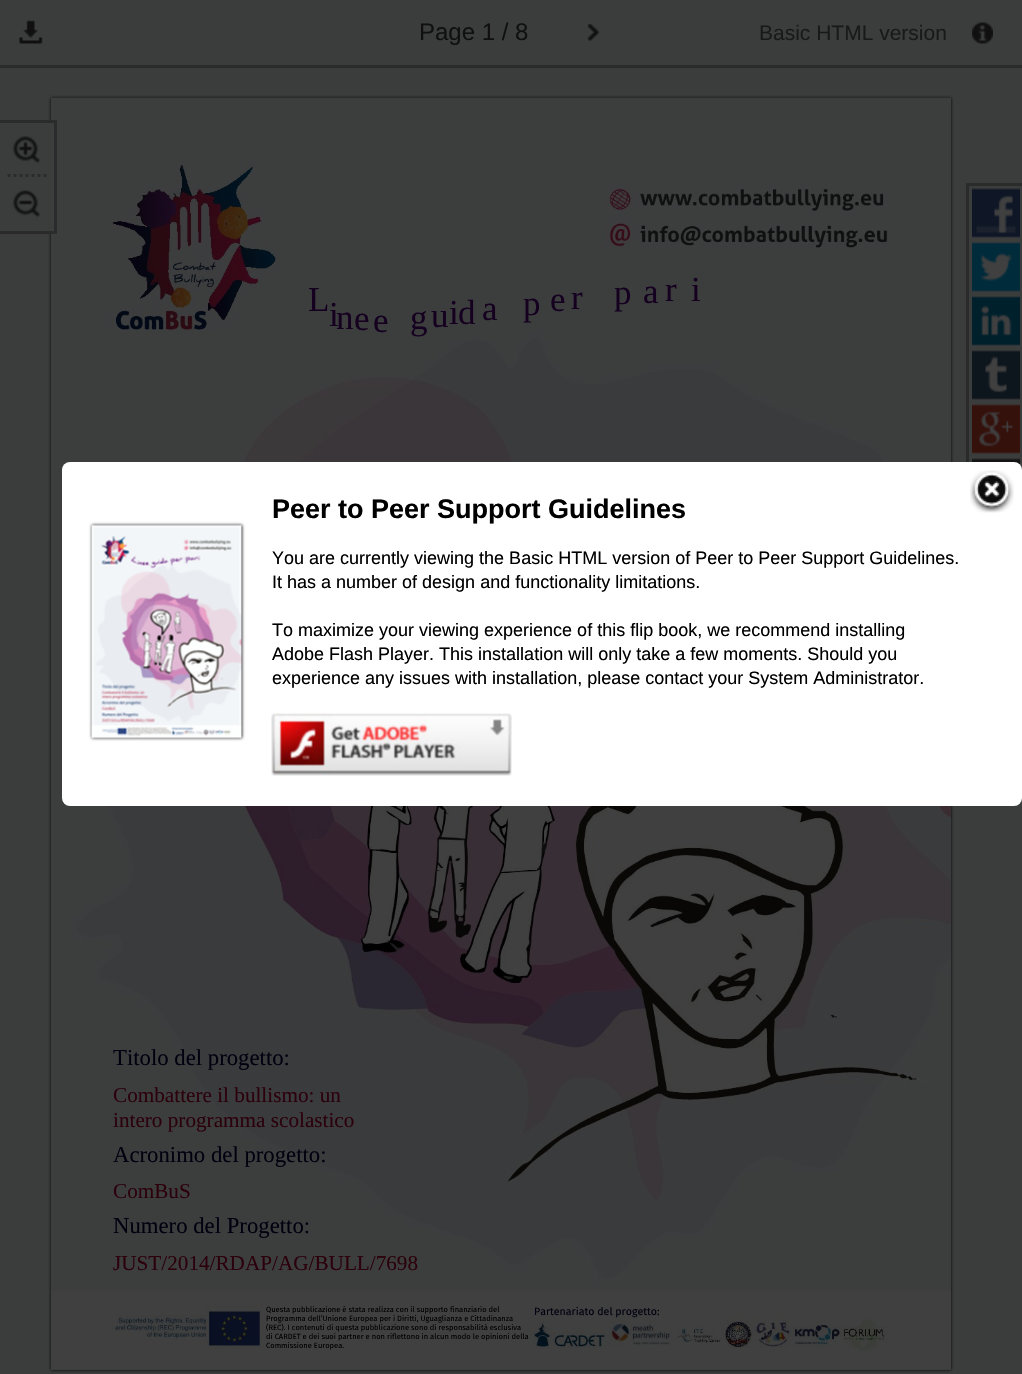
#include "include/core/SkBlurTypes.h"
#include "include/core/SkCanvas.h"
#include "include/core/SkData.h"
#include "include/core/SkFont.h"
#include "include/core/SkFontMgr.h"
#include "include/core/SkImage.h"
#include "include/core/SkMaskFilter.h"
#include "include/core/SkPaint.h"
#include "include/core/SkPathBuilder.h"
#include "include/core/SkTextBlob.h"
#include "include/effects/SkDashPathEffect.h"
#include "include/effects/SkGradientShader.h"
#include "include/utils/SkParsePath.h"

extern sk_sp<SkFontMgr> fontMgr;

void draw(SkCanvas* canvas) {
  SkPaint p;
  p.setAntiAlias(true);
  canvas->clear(SkColorSetRGB(59, 60, 60));
  p.setColor(SkColorSetRGB(42, 43, 43));
  canvas->drawRect(SkRect::MakeLTRB(0, 65, 1022, 68), p);
  canvas->drawImageRect(SkImages::DeferredFromEncodedData(SkData::MakeFromFileName("images/1.png")), SkRect::MakeLTRB(19, 19, 43, 44), SkSamplingOptions());
  canvas->drawImageRect(SkImages::DeferredFromEncodedData(SkData::MakeFromFileName("images/2.png")), SkRect::MakeLTRB(587, 23, 599, 41), SkSamplingOptions());
  canvas->drawImageRect(SkImages::DeferredFromEncodedData(SkData::MakeFromFileName("images/3.png")), SkRect::MakeLTRB(972, 22, 993, 44), SkSamplingOptions());
  p.setColor(SK_ColorBLACK);
  p.setMaskFilter(SkMaskFilter::MakeBlur(kNormal_SkBlurStyle, 1.5f));
  canvas->drawRect(SkRect::MakeLTRB(51, 98, 951, 1370), p);
  p.setMaskFilter(nullptr);
  p.setColor(SkColorSetRGB(59, 60, 60));
  canvas->drawRect(SkRect::MakeLTRB(48, 120, 51, 234), p);
  canvas->drawImageRect(SkImages::DeferredFromEncodedData(SkData::MakeFromFileName("images/12.png")), SkRect::MakeLTRB(51, 97, 951, 1369), SkSamplingOptions());
  p.setColor(SkColorSetRGB(42, 43, 43));
  canvas->drawPath(SkPathBuilder().moveTo(0, 120).lineTo(57, 120).lineTo(54, 123).lineTo(0, 123).close().detach(), p);
  p.setColor(SkColorSetARGB(102, 16, 16, 17));
  canvas->drawPath(SkPathBuilder().moveTo(57, 120).lineTo(57, 234).lineTo(54, 231).lineTo(54, 123).close().detach(), p);
  canvas->drawPath(SkPathBuilder().moveTo(57, 234).lineTo(0, 234).lineTo(0, 231).lineTo(54, 231).close().detach(), p);
  canvas->drawImageRect(SkImages::DeferredFromEncodedData(SkData::MakeFromFileName("images/4.png")), SkRect::MakeLTRB(12, 136, 41, 164), SkSamplingOptions());
  p.setStyle(SkPaint::kStroke_Style);
  p.setStrokeWidth(3);
  p.setColor(SkColorSetRGB(42, 43, 43));
  p.setPathEffect(SkDashPathEffect::Make({{3, 3}}, 0));
  canvas->drawPath(SkPathBuilder().moveTo(7.5f, 175.5f).lineTo(46.5f, 175.5f).detach(), p);
  p.setPathEffect(nullptr);
  canvas->drawImageRect(SkImages::DeferredFromEncodedData(SkData::MakeFromFileName("images/5.png")), SkRect::MakeLTRB(12, 190, 41, 218), SkSamplingOptions());
  p.setStyle(SkPaint::kFill_Style);
  canvas->drawPath(SkPathBuilder().moveTo(966, 183).lineTo(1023, 183).lineTo(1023, 186).lineTo(969, 186).close().detach(), p);
  p.setColor(SkColorSetARGB(102, 16, 16, 17));
  canvas->drawPath(SkPathBuilder().moveTo(966, 567).lineTo(966, 183).lineTo(969, 186).lineTo(969, 564).close().detach(), p);
  canvas->drawImageRect(SkImages::DeferredFromEncodedData(SkData::MakeFromFileName("images/6.png")), SkRect::MakeLTRB(972, 188, 1020, 238), SkSamplingOptions());
  canvas->drawImageRect(SkImages::DeferredFromEncodedData(SkData::MakeFromFileName("images/7.png")), SkRect::MakeLTRB(972, 242, 1020, 292), SkSamplingOptions());
  canvas->drawImageRect(SkImages::DeferredFromEncodedData(SkData::MakeFromFileName("images/8.png")), SkRect::MakeLTRB(972, 296, 1020, 346), SkSamplingOptions());
  canvas->drawImageRect(SkImages::DeferredFromEncodedData(SkData::MakeFromFileName("images/9.png")), SkRect::MakeLTRB(972, 350, 1020, 400), SkSamplingOptions());
  canvas->drawImageRect(SkImages::DeferredFromEncodedData(SkData::MakeFromFileName("images/10.png")), SkRect::MakeLTRB(972, 404, 1020, 454), SkSamplingOptions());
  canvas->drawImageRect(SkImages::DeferredFromEncodedData(SkData::MakeFromFileName("images/11.png")), SkRect::MakeLTRB(972, 458, 1020, 465), SkSamplingOptions());
  p.setColor(SkColorSetRGB(60, 62, 62));
  canvas->drawRect(SkRect::MakeLTRB(51, 1369, 951, 1370), p);
  p.setColor(SK_ColorWHITE);
  canvas->drawRoundRect(SkRect::MakeLTRB(62, 462, 1022, 806), 8, 8, p);
  canvas->drawImageRect(SkImages::DeferredFromEncodedData(SkData::MakeFromFileName("images/13.png")), SkRect::MakeLTRB(970, 470, 1014, 513), SkSamplingOptions());
  p.setColor(SK_ColorBLACK);
  p.setMaskFilter(SkMaskFilter::MakeBlur(kNormal_SkBlurStyle, 1.5f));
  canvas->drawRect(SkRect::MakeLTRB(92, 525, 242, 738), p);
  p.setMaskFilter(nullptr);
  canvas->drawImageRect(SkImages::DeferredFromEncodedData(SkData::MakeFromFileName("images/14.png")), SkRect::MakeLTRB(91, 524, 242, 739), SkSamplingOptions());
  canvas->drawImageRect(SkImages::DeferredFromEncodedData(SkData::MakeFromFileName("images/15.png")), SkRect::MakeLTRB(271, 713, 512, 776), SkSamplingOptions());
  SkFont font1(fontMgr->matchFamilyStyle("Liberation Sans", SkFontStyle::Normal()), 24);
  font1.setSubpixel(true);
  p.setColor(SkColorSetRGB(16, 16, 17));
  canvas->drawString("Page 1 / 8", 419, 40, font1, p);
  SkFont font2(fontMgr->matchFamilyStyle("Liberation Sans", SkFontStyle::Normal()), 21);
  font2.setSubpixel(true);
  p.setColor(SkColorSetRGB(25, 25, 25));
  canvas->drawString("Basic HTML version", 759, 40, font2, p);
  SkFont font3(fontMgr->matchFamilyStyle("Liberation Serif", SkFontStyle::Normal()), 35);
  font3.setSubpixel(true);
  p.setColor(SkColorSetRGB(21, 0, 32));
  canvas->drawString("L", 308, 311, font3, p);
  canvas->drawString("i", 329, 326, font3, p);
  canvas->drawString("n", 336, 329, font3, p);
  canvas->drawString("e", 354, 330, font3, p);
  canvas->drawString("e", 373, 332, font3, p);
  canvas->drawString("g", 410, 329, font3, p);
  canvas->drawString("u", 431, 327, font3, p);
  canvas->drawString("i", 449, 324, font3, p);
  canvas->drawString("d", 458, 324, font3, p);
  canvas->drawString("a", 482, 320, font3, p);
  canvas->drawString("p", 523, 315, font3, p);
  canvas->drawString("e", 550, 311, font3, p);
  canvas->drawString("r", 571, 309, font3, p);
  canvas->drawString("p", 614, 304, font3, p);
  canvas->drawString("a", 643, 303, font3, p);
  canvas->drawString("r", 665, 301, font3, p);
  canvas->drawString("i", 691, 301, font3, p);
  SkFont font4(fontMgr->matchFamilyStyle("Liberation Serif", SkFontStyle::Normal()), 22.75f);
  font4.setSubpixel(true);
  p.setColor(SkColorSetRGB(0, 0, 15));
  canvas->drawString("Titolo del progetto:", 113, 1065, font4, p);
  SkFont font5(fontMgr->matchFamilyStyle("Liberation Serif", SkFontStyle::Normal()), 21.2f);
  font5.setSubpixel(true);
  p.setColor(SkColorSetRGB(43, 0, 12));
  canvas->drawString("Combattere il bullismo: un", 113, 1102, font5, p);
  canvas->drawString("intero programma scolastico", 113, 1127, font5, p);
  p.setColor(SkColorSetRGB(0, 0, 15));
  canvas->drawString("Acronimo del progetto:", 113, 1162, font4, p);
  p.setColor(SkColorSetRGB(43, 0, 12));
  canvas->drawString("ComBuS", 113, 1198, font5, p);
  p.setColor(SkColorSetRGB(0, 0, 15));
  canvas->drawString("Numero del Progetto:", 113, 1233, font4, p);
  p.setColor(SkColorSetRGB(43, 0, 12));
  canvas->drawString("JUST/2014/RDAP/AG/BULL/7698", 113, 1270, font5, p);
  SkFont font6(fontMgr->matchFamilyStyle("Fira Sans", SkFontStyle::Normal()), 7.55f);
  font6.setSubpixel(true);
  p.setColor(SK_ColorBLACK);
  canvas->drawString("Questa pubblicazione è stata realizza con il supporto finanziario del", 266, 1312, font6, p);
  SkFont font7(fontMgr->matchFamilyStyle("Fira Sans", SkFontStyle::Normal()), 10.6f);
  font7.setSubpixel(true);
  p.setColor(SkColorSetRGB(0, 0, 15));
  canvas->drawString("Partenariato del progetto:", 534, 1315, font7, p);
  p.setColor(SK_ColorBLACK);
  canvas->drawString("Programma dell’Unione Europea per i Diritti, Uguaglianza e Cittadinanza", 266, 1321, font6, p);
  canvas->drawString("(REC). I contenuti di questa pubblicazione sono di responsabilità esclusiva", 266, 1330, font6, p);
  canvas->drawString("di CARDET e dei suoi partner e non riflettono in alcun modo le opinioni della", 266, 1339, font6, p);
  canvas->drawString("Commissione Europea.", 266, 1348, font6, p);
  SkFont font8(fontMgr->matchFamilyStyle("Liberation Sans", SkFontStyle::Bold()), 27);
  font8.setSubpixel(true);
  canvas->drawString("Peer to Peer Support Guidelines", 272, 518, font8, p);
  SkFont font9(fontMgr->matchFamilyStyle("Liberation Sans", SkFontStyle::Normal()), 18);
  font9.setSubpixel(true);
  canvas->drawString("You are currently viewing the Basic HTML version of Peer to Peer Support Guidelines.", 272, 564, font9, p);
  canvas->drawString("It has a number of design and functionality limitations.", 272, 588, font9, p);
  canvas->drawString("To maximize your viewing experience of this flip book, we recommend installing", 272, 636, font9, p);
  canvas->drawString("Adobe Flash Player. This installation will only take a few moments. Should you", 272, 660, font9, p);
  canvas->drawString("experience any issues with installation, please contact your System Administrator.", 272, 684, font9, p);
}
